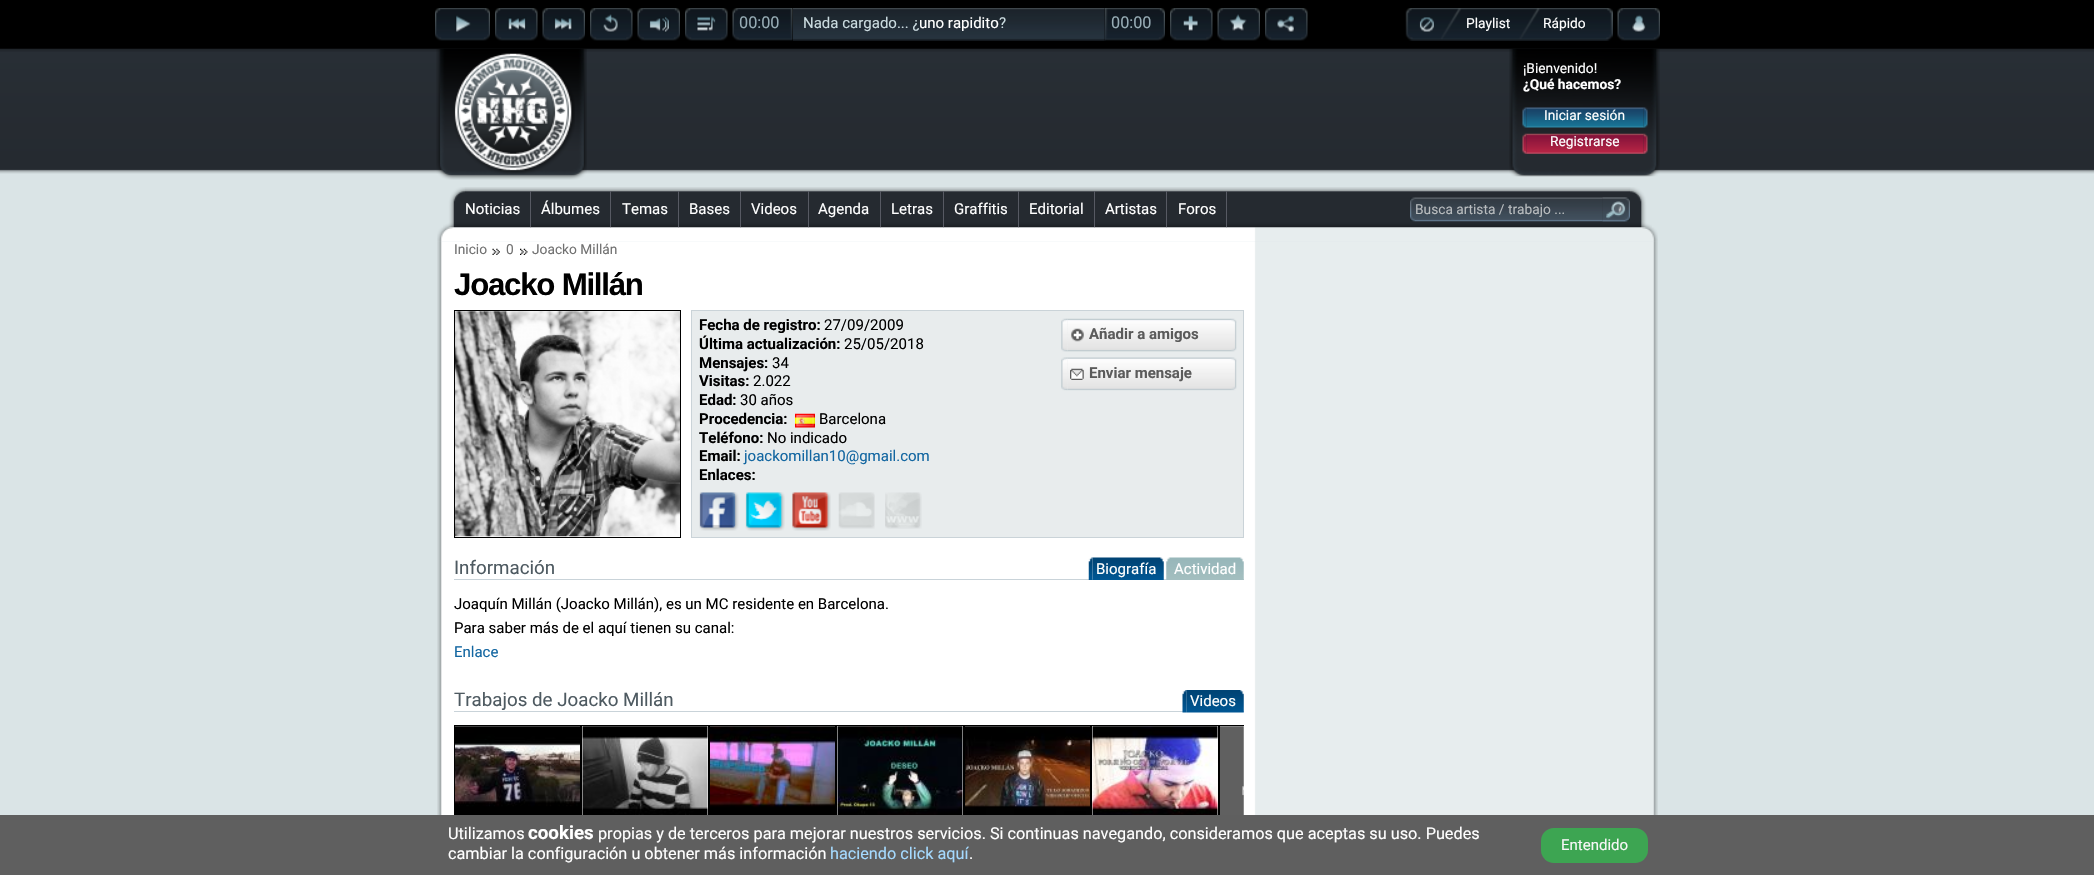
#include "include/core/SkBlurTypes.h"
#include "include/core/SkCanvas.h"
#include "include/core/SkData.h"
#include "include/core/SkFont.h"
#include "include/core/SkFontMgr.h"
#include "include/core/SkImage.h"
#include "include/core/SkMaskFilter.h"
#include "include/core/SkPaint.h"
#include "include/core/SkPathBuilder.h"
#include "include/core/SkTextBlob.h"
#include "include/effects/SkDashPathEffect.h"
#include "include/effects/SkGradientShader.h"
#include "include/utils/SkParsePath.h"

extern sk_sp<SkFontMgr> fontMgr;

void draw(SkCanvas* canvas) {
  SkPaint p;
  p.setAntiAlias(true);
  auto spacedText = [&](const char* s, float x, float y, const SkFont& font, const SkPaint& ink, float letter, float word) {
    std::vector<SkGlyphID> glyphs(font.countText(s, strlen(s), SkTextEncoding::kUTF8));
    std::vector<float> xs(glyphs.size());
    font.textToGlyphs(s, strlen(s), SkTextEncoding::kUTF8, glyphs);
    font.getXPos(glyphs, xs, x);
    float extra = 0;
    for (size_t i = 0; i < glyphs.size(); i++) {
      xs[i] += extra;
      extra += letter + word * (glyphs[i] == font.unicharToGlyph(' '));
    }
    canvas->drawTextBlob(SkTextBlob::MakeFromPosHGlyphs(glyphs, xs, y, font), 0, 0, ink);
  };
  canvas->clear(SkColorSetRGB(218, 228, 230));
  canvas->drawImageRect(SkImages::DeferredFromEncodedData(SkData::MakeFromFileName("images/1.png")), SkRect::MakeLTRB(0, 48, 2094, 174), SkSamplingOptions());
  canvas->drawImageRect(SkImages::DeferredFromEncodedData(SkData::MakeFromFileName("images/18.png")), SkRect::MakeLTRB(436, 48, 587, 180), SkSamplingOptions());
  canvas->drawImageRect(SkImages::DeferredFromEncodedData(SkData::MakeFromFileName("images/20.png")), SkRect::MakeLTRB(1509, 48, 1660, 177), SkSamplingOptions());
  canvas->drawImageRect(SkImages::DeferredFromEncodedData(SkData::MakeFromFileName("images/2.png")), SkRect::MakeLTRB(0, 0, 2094, 52), SkSamplingOptions());
  canvas->drawImageRect(SkImages::DeferredFromEncodedData(SkData::MakeFromFileName("images/3.png")), SkRect::MakeLTRB(435, 8, 490, 41), SkSamplingOptions());
  canvas->drawImageRect(SkImages::DeferredFromEncodedData(SkData::MakeFromFileName("images/4.png")), SkRect::MakeLTRB(495, 8, 538, 41), SkSamplingOptions());
  canvas->drawImageRect(SkImages::DeferredFromEncodedData(SkData::MakeFromFileName("images/5.png")), SkRect::MakeLTRB(542, 8, 585, 41), SkSamplingOptions());
  canvas->drawImageRect(SkImages::DeferredFromEncodedData(SkData::MakeFromFileName("images/6.png")), SkRect::MakeLTRB(590, 8, 633, 41), SkSamplingOptions());
  canvas->drawImageRect(SkImages::DeferredFromEncodedData(SkData::MakeFromFileName("images/7.png")), SkRect::MakeLTRB(637, 8, 680, 41), SkSamplingOptions());
  canvas->drawImageRect(SkImages::DeferredFromEncodedData(SkData::MakeFromFileName("images/8.png")), SkRect::MakeLTRB(685, 8, 728, 41), SkSamplingOptions());
  canvas->drawImageRect(SkImages::DeferredFromEncodedData(SkData::MakeFromFileName("images/9.png")), SkRect::MakeLTRB(732, 8, 793, 41), SkSamplingOptions());
  canvas->drawImageRect(SkImages::DeferredFromEncodedData(SkData::MakeFromFileName("images/11.png")), SkRect::MakeLTRB(1105, 8, 1165, 41), SkSamplingOptions());
  canvas->drawImageRect(SkImages::DeferredFromEncodedData(SkData::MakeFromFileName("images/10.png")), SkRect::MakeLTRB(793, 8, 1106, 41), SkSamplingOptions());
  canvas->drawImageRect(SkImages::DeferredFromEncodedData(SkData::MakeFromFileName("images/12.png")), SkRect::MakeLTRB(1170, 8, 1213, 41), SkSamplingOptions());
  canvas->drawImageRect(SkImages::DeferredFromEncodedData(SkData::MakeFromFileName("images/13.png")), SkRect::MakeLTRB(1217, 8, 1260, 41), SkSamplingOptions());
  canvas->drawImageRect(SkImages::DeferredFromEncodedData(SkData::MakeFromFileName("images/14.png")), SkRect::MakeLTRB(1265, 8, 1308, 41), SkSamplingOptions());
  canvas->drawImageRect(SkImages::DeferredFromEncodedData(SkData::MakeFromFileName("images/15.png")), SkRect::MakeLTRB(1405, 8, 1613, 41), SkSamplingOptions());
  canvas->drawImageRect(SkImages::DeferredFromEncodedData(SkData::MakeFromFileName("images/16.png")), SkRect::MakeLTRB(1419, 17, 1434, 32), SkSamplingOptions());
  canvas->drawImageRect(SkImages::DeferredFromEncodedData(SkData::MakeFromFileName("images/17.png")), SkRect::MakeLTRB(1617, 8, 1660, 41), SkSamplingOptions());
  canvas->drawImageRect(SkImages::DeferredFromEncodedData(SkData::MakeFromFileName("images/19.png")), SkRect::MakeLTRB(454, 53, 575, 174), SkSamplingOptions());
  canvas->drawImageRect(SkImages::DeferredFromEncodedData(SkData::MakeFromFileName("images/21.png")), SkRect::MakeLTRB(1522, 107, 1527, 128), SkSamplingOptions());
  canvas->drawImageRect(SkImages::DeferredFromEncodedData(SkData::MakeFromFileName("images/22.png")), SkRect::MakeLTRB(1526, 107, 1644, 128), SkSamplingOptions());
  canvas->drawImageRect(SkImages::DeferredFromEncodedData(SkData::MakeFromFileName("images/23.png")), SkRect::MakeLTRB(1643, 107, 1648, 128), SkSamplingOptions());
  canvas->drawImageRect(SkImages::DeferredFromEncodedData(SkData::MakeFromFileName("images/24.png")), SkRect::MakeLTRB(1522, 133, 1527, 154), SkSamplingOptions());
  canvas->drawImageRect(SkImages::DeferredFromEncodedData(SkData::MakeFromFileName("images/25.png")), SkRect::MakeLTRB(1526, 133, 1644, 154), SkSamplingOptions());
  canvas->drawImageRect(SkImages::DeferredFromEncodedData(SkData::MakeFromFileName("images/26.png")), SkRect::MakeLTRB(1643, 133, 1648, 154), SkSamplingOptions());
  canvas->drawImageRect(SkImages::DeferredFromEncodedData(SkData::MakeFromFileName("images/27.png")), SkRect::MakeLTRB(443, 187, 465, 228), SkSamplingOptions());
  canvas->drawImageRect(SkImages::DeferredFromEncodedData(SkData::MakeFromFileName("images/28.png")), SkRect::MakeLTRB(465, 187, 1630, 228), SkSamplingOptions());
  p.setColor(SkColorSetRGB(87, 90, 99));
  canvas->drawRect(SkRect::MakeLTRB(530, 191, 531, 228), p);
  canvas->drawRect(SkRect::MakeLTRB(610, 191, 611, 228), p);
  canvas->drawRect(SkRect::MakeLTRB(678, 191, 679, 228), p);
  canvas->drawRect(SkRect::MakeLTRB(740, 191, 741, 228), p);
  canvas->drawRect(SkRect::MakeLTRB(808, 191, 809, 228), p);
  canvas->drawRect(SkRect::MakeLTRB(880, 191, 881, 228), p);
  canvas->drawRect(SkRect::MakeLTRB(943, 191, 944, 228), p);
  canvas->drawRect(SkRect::MakeLTRB(1018, 191, 1019, 228), p);
  canvas->drawRect(SkRect::MakeLTRB(1094, 191, 1095, 228), p);
  canvas->drawRect(SkRect::MakeLTRB(1166, 191, 1167, 228), p);
  canvas->drawRect(SkRect::MakeLTRB(1226, 191, 1227, 228), p);
  canvas->drawImageRect(SkImages::DeferredFromEncodedData(SkData::MakeFromFileName("images/29.png")), SkRect::MakeLTRB(1410, 197, 1415, 222), SkSamplingOptions());
  canvas->drawImageRect(SkImages::DeferredFromEncodedData(SkData::MakeFromFileName("images/30.png")), SkRect::MakeLTRB(1415, 197, 1603, 222), SkSamplingOptions());
  canvas->drawImageRect(SkImages::DeferredFromEncodedData(SkData::MakeFromFileName("images/31.png")), SkRect::MakeLTRB(1602, 197, 1630, 222), SkSamplingOptions());
  canvas->drawImageRect(SkImages::DeferredFromEncodedData(SkData::MakeFromFileName("images/32.png")), SkRect::MakeLTRB(1602, 197, 1627, 222), SkSamplingOptions());
  canvas->drawImageRect(SkImages::DeferredFromEncodedData(SkData::MakeFromFileName("images/33.png")), SkRect::MakeLTRB(1630, 187, 1652, 228), SkSamplingOptions());
  canvas->drawImageRect(SkImages::DeferredFromEncodedData(SkData::MakeFromFileName("images/34.png")), SkRect::MakeLTRB(437, 227, 1658, 242), SkSamplingOptions());
  canvas->drawImageRect(SkImages::DeferredFromEncodedData(SkData::MakeFromFileName("images/35.png")), SkRect::MakeLTRB(437, 241, 1658, 815), SkSamplingOptions());
  canvas->drawImageRect(SkImages::DeferredFromEncodedData(SkData::MakeFromFileName("images/36.png")), SkRect::MakeLTRB(492, 248, 500, 255), SkSamplingOptions());
  canvas->drawImageRect(SkImages::DeferredFromEncodedData(SkData::MakeFromFileName("images/37.png")), SkRect::MakeLTRB(520, 248, 528, 255), SkSamplingOptions());
  p.setStyle(SkPaint::kStroke_Style);
  p.setStrokeWidth(1);
  p.setColor(SK_ColorBLACK);
  canvas->drawRect(SkRect::MakeLTRB(454.5f, 310.5f, 680.5f, 537.5f), p);
  canvas->drawImageRect(SkImages::DeferredFromEncodedData(SkData::MakeFromFileName("images/38.png")), SkRect::MakeLTRB(455, 311, 680, 537), SkSamplingOptions());
  p.setStyle(SkPaint::kFill_Style);
  p.setColor(SkColorSetRGB(232, 236, 237));
  canvas->drawRect(SkRect::MakeLTRB(691.5f, 310.5f, 1243.5f, 537.5f), p);
  p.setStyle(SkPaint::kStroke_Style);
  p.setColor(SkColorSetRGB(202, 211, 216));
  canvas->drawRect(SkRect::MakeLTRB(691.5f, 310.5f, 1243.5f, 537.5f), p);
  canvas->drawImageRect(SkImages::DeferredFromEncodedData(SkData::MakeFromFileName("images/39.png")), SkRect::MakeLTRB(795, 413, 815, 428), SkSamplingOptions());
  canvas->drawImageRect(SkImages::DeferredFromEncodedData(SkData::MakeFromFileName("images/40.png")), SkRect::MakeLTRB(699, 492, 739, 531), SkSamplingOptions());
  canvas->drawImageRect(SkImages::DeferredFromEncodedData(SkData::MakeFromFileName("images/41.png")), SkRect::MakeLTRB(745, 492, 785, 531), SkSamplingOptions());
  canvas->drawImageRect(SkImages::DeferredFromEncodedData(SkData::MakeFromFileName("images/42.png")), SkRect::MakeLTRB(792, 492, 831, 531), SkSamplingOptions());
  canvas->drawImageRect(SkImages::DeferredFromEncodedData(SkData::MakeFromFileName("images/43.png")), SkRect::MakeLTRB(838, 492, 875, 529), SkSamplingOptions());
  canvas->drawImageRect(SkImages::DeferredFromEncodedData(SkData::MakeFromFileName("images/44.png")), SkRect::MakeLTRB(885, 492, 922, 529), SkSamplingOptions());
  canvas->drawImageRect(SkImages::DeferredFromEncodedData(SkData::MakeFromFileName("images/45.png")), SkRect::MakeLTRB(1061, 318, 1068, 352), SkSamplingOptions());
  canvas->drawImageRect(SkImages::DeferredFromEncodedData(SkData::MakeFromFileName("images/46.png")), SkRect::MakeLTRB(1067, 318, 1230, 352), SkSamplingOptions());
  canvas->drawImageRect(SkImages::DeferredFromEncodedData(SkData::MakeFromFileName("images/47.png")), SkRect::MakeLTRB(1071, 328, 1084, 342), SkSamplingOptions());
  canvas->drawImageRect(SkImages::DeferredFromEncodedData(SkData::MakeFromFileName("images/48.png")), SkRect::MakeLTRB(1230, 318, 1237, 352), SkSamplingOptions());
  canvas->drawImageRect(SkImages::DeferredFromEncodedData(SkData::MakeFromFileName("images/49.png")), SkRect::MakeLTRB(1061, 357, 1068, 391), SkSamplingOptions());
  canvas->drawImageRect(SkImages::DeferredFromEncodedData(SkData::MakeFromFileName("images/50.png")), SkRect::MakeLTRB(1067, 357, 1230, 391), SkSamplingOptions());
  canvas->drawImageRect(SkImages::DeferredFromEncodedData(SkData::MakeFromFileName("images/51.png")), SkRect::MakeLTRB(1070, 368, 1084, 380), SkSamplingOptions());
  canvas->drawImageRect(SkImages::DeferredFromEncodedData(SkData::MakeFromFileName("images/52.png")), SkRect::MakeLTRB(1230, 357, 1237, 391), SkSamplingOptions());
  p.setStyle(SkPaint::kFill_Style);
  p.setColor(SkColorSetRGB(201, 211, 217));
  canvas->drawRect(SkRect::MakeLTRB(454, 579, 1244, 580), p);
  canvas->drawImageRect(SkImages::DeferredFromEncodedData(SkData::MakeFromFileName("images/53.png")), SkRect::MakeLTRB(1088, 557, 1093, 580), SkSamplingOptions());
  canvas->drawImageRect(SkImages::DeferredFromEncodedData(SkData::MakeFromFileName("images/54.png")), SkRect::MakeLTRB(1092, 557, 1160, 580), SkSamplingOptions());
  canvas->drawImageRect(SkImages::DeferredFromEncodedData(SkData::MakeFromFileName("images/55.png")), SkRect::MakeLTRB(1160, 557, 1164, 580), SkSamplingOptions());
  canvas->drawImageRect(SkImages::DeferredFromEncodedData(SkData::MakeFromFileName("images/56.png")), SkRect::MakeLTRB(1166, 557, 1170, 580), SkSamplingOptions());
  canvas->drawImageRect(SkImages::DeferredFromEncodedData(SkData::MakeFromFileName("images/57.png")), SkRect::MakeLTRB(1170, 557, 1240, 580), SkSamplingOptions());
  canvas->drawImageRect(SkImages::DeferredFromEncodedData(SkData::MakeFromFileName("images/58.png")), SkRect::MakeLTRB(1240, 557, 1244, 580), SkSamplingOptions());
  canvas->drawRect(SkRect::MakeLTRB(454, 711, 1244, 712), p);
  canvas->drawImageRect(SkImages::DeferredFromEncodedData(SkData::MakeFromFileName("images/59.png")), SkRect::MakeLTRB(1182, 690, 1187, 713), SkSamplingOptions());
  canvas->drawImageRect(SkImages::DeferredFromEncodedData(SkData::MakeFromFileName("images/60.png")), SkRect::MakeLTRB(1186, 690, 1240, 713), SkSamplingOptions());
  canvas->drawImageRect(SkImages::DeferredFromEncodedData(SkData::MakeFromFileName("images/61.png")), SkRect::MakeLTRB(1240, 690, 1244, 713), SkSamplingOptions());
  p.setStyle(SkPaint::kStroke_Style);
  p.setColor(SK_ColorBLACK);
  canvas->drawRect(SkRect::MakeLTRB(454.5f, 725.5f, 580.5f, 820.5f), p);
  canvas->drawRect(SkRect::MakeLTRB(581.5f, 725.5f, 708.5f, 820.5f), p);
  canvas->drawRect(SkRect::MakeLTRB(709.5f, 725.5f, 835.5f, 820.5f), p);
  canvas->drawRect(SkRect::MakeLTRB(836.5f, 725.5f, 963.5f, 820.5f), p);
  canvas->drawRect(SkRect::MakeLTRB(964.5f, 725.5f, 1090.5f, 820.5f), p);
  canvas->drawRect(SkRect::MakeLTRB(1091.5f, 725.5f, 1218.5f, 820.5f), p);
  canvas->save();
  canvas->clipRect(SkRect::MakeLTRB(454, 725, 1244, 821));
  canvas->drawRect(SkRect::MakeLTRB(1219.5f, 725.5f, 1345.5f, 820.5f), p);
  canvas->restore();
  canvas->drawImageRect(SkImages::DeferredFromEncodedData(SkData::MakeFromFileName("images/62.png")), SkRect::MakeLTRB(455, 726, 580, 815), SkSamplingOptions());
  canvas->drawImageRect(SkImages::DeferredFromEncodedData(SkData::MakeFromFileName("images/63.png")), SkRect::MakeLTRB(582, 726, 708, 815), SkSamplingOptions());
  canvas->drawImageRect(SkImages::DeferredFromEncodedData(SkData::MakeFromFileName("images/64.png")), SkRect::MakeLTRB(710, 726, 835, 815), SkSamplingOptions());
  canvas->drawImageRect(SkImages::DeferredFromEncodedData(SkData::MakeFromFileName("images/65.png")), SkRect::MakeLTRB(837, 726, 963, 815), SkSamplingOptions());
  canvas->drawImageRect(SkImages::DeferredFromEncodedData(SkData::MakeFromFileName("images/66.png")), SkRect::MakeLTRB(965, 726, 1090, 815), SkSamplingOptions());
  canvas->drawImageRect(SkImages::DeferredFromEncodedData(SkData::MakeFromFileName("images/67.png")), SkRect::MakeLTRB(1092, 726, 1218, 815), SkSamplingOptions());
  canvas->drawImageRect(SkImages::DeferredFromEncodedData(SkData::MakeFromFileName("images/68.png")), SkRect::MakeLTRB(1220, 726, 1244, 815), SkSamplingOptions());
  p.setStyle(SkPaint::kFill_Style);
  p.setColor(SkColorSetRGB(95, 95, 95));
  canvas->drawRect(SkRect::MakeLTRB(0, 815, 2094, 875), p);
  p.setColor(SkColorSetRGB(61, 165, 82));
  canvas->drawRoundRect(SkRect::MakeLTRB(1541, 828, 1648, 863), 13, 13, p);
  SkFont font1(fontMgr->matchFamilyStyle("Roboto", SkFontStyle::Normal()), 16.25f);
  font1.setSubpixel(true);
  p.setColor(SkColorSetRGB(151, 172, 181));
  canvas->drawString("00:00", 739, 28, font1, p);
  SkFont font2(fontMgr->matchFamilyStyle("Roboto", SkFontStyle::Normal()), 15);
  font2.setSubpixel(true);
  p.setColor(SkColorSetRGB(203, 219, 224));
  canvas->drawString("Nada cargado... ¿", 803, 28, font2, p);
  p.setColor(SK_ColorWHITE);
  canvas->drawString("uno rapidito", 919, 28, font2, p);
  p.setColor(SkColorSetRGB(203, 219, 224));
  canvas->drawString("?", 999, 28, font2, p);
  p.setColor(SkColorSetRGB(151, 172, 181));
  canvas->drawString("00:00", 1111, 28, font1, p);
  SkFont font3(fontMgr->matchFamilyStyle("Roboto", SkFontStyle::Normal()), 13.75f);
  font3.setSubpixel(true);
  p.setColor(SK_ColorWHITE);
  canvas->drawString("Playlist", 1466, 28, font3, p);
  canvas->drawString("Rápido", 1543, 28, font3, p);
  canvas->drawString("¡Bienvenido!", 1523, 73, font3, p);
  SkFont font4(fontMgr->matchFamilyStyle("Roboto", SkFontStyle::Bold()), 13.75f);
  font4.setSubpixel(true);
  canvas->drawString("¿Qué hacemos?", 1523, 89, font4, p);
  canvas->drawString("Iniciar sesión", 1544, 120, font3, p);
  canvas->drawString("Registrarse", 1550, 146, font3, p);
  canvas->drawString("Noticias", 465, 214, font2, p);
  canvas->drawString("Álbumes", 541, 214, font2, p);
  canvas->drawString("Temas", 622, 214, font2, p);
  canvas->drawString("Bases", 689, 214, font2, p);
  canvas->drawString("Videos", 751, 214, font2, p);
  canvas->drawString("Agenda", 818, 214, font2, p);
  canvas->drawString("Letras", 891, 214, font2, p);
  canvas->drawString("Graffitis", 954, 214, font2, p);
  canvas->drawString("Editorial", 1029, 214, font2, p);
  canvas->drawString("Artistas", 1105, 214, font2, p);
  canvas->drawString("Foros", 1178, 214, font2, p);
  p.setColor(SkColorSetRGB(184, 188, 190));
  canvas->drawString("Busca artista / trabajo ...", 1415, 214, font3, p);
  p.setColor(SkColorSetRGB(113, 113, 113));
  canvas->drawString("Inicio", 454, 254, font3, p);
  canvas->drawString("0", 506, 254, font3, p);
  canvas->drawString("Joacko Millán", 532, 254, font3, p);
  SkFont font5(fontMgr->matchFamilyStyle("Liberation Sans", SkFontStyle::Bold()), 31.25f);
  font5.setSubpixel(true);
  p.setColor(SK_ColorBLACK);
  spacedText("Joacko Millán", 454, 295, font5, p, -1.25f, 0);
  SkFont font6(fontMgr->matchFamilyStyle("Roboto", SkFontStyle::Bold()), 15);
  font6.setSubpixel(true);
  canvas->drawString("Fecha de registro:", 699, 330, font6, p);
  canvas->drawString("27/09/2009", 824, 330, font2, p);
  canvas->drawString("Última actualización:", 699, 349, font6, p);
  canvas->drawString("25/05/2018", 844, 349, font2, p);
  canvas->drawString("Mensajes:", 699, 368, font6, p);
  canvas->drawString("34", 772, 368, font2, p);
  canvas->drawString("Visitas:", 699, 386, font6, p);
  canvas->drawString("2.022", 753, 386, font2, p);
  canvas->drawString("Edad:", 699, 405, font6, p);
  canvas->drawString("30 años", 740, 405, font2, p);
  canvas->drawString("Procedencia:", 699, 424, font6, p);
  canvas->drawString("Barcelona", 819, 424, font2, p);
  canvas->drawString("Teléfono:", 699, 443, font6, p);
  canvas->drawString("No indicado", 767, 443, font2, p);
  canvas->drawString("Email:", 699, 461, font6, p);
  p.setColor(SkColorSetRGB(18, 102, 161));
  canvas->drawString("joackomillan10@gmail.com", 744, 461, font2, p);
  p.setColor(SK_ColorBLACK);
  canvas->drawString("Enlaces:", 699, 480, font6, p);
  p.setColor(SkColorSetRGB(91, 91, 91));
  canvas->drawString("Añadir a amigos", 1089, 339, font6, p);
  canvas->drawString("Enviar mensaje", 1089, 378, font6, p);
  SkFont font7(fontMgr->matchFamilyStyle("Roboto", SkFontStyle::Normal()), 18.75f);
  font7.setSubpixel(true);
  p.setColor(SkColorSetRGB(78, 90, 97));
  canvas->drawString("Información", 454, 574, font7, p);
  p.setColor(SK_ColorWHITE);
  canvas->drawString("Biografía", 1096, 574, font2, p);
  canvas->drawString("Actividad", 1174, 574, font2, p);
  p.setColor(SK_ColorBLACK);
  canvas->drawString("Joaquín Millán (Joacko Millán), es un MC residente en Barcelona.", 454, 609, font2, p);
  canvas->drawString("Para saber más de el aquí tienen su canal:", 454, 633, font2, p);
  p.setColor(SkColorSetRGB(18, 102, 161));
  canvas->drawString("Enlace", 454, 657, font2, p);
  p.setColor(SkColorSetRGB(78, 90, 97));
  canvas->drawString("Trabajos de Joacko Millán", 454, 706, font7, p);
  p.setColor(SK_ColorWHITE);
  canvas->drawString("Videos", 1190, 706, font2, p);
  canvas->drawString("Utilizamos", 448, 839, font1, p);
  SkFont font8(fontMgr->matchFamilyStyle("Roboto", SkFontStyle::Bold()), 18.75f);
  font8.setSubpixel(true);
  canvas->drawString("cookies", 528, 839, font8, p);
  canvas->drawString("propias y de terceros para mejorar nuestros servicios. Si continuas navegando, consideramos que aceptas su uso. Puedes", 598, 839, font1, p);
  canvas->drawString("cambiar la configuración u obtener más información", 448, 859, font1, p);
  p.setColor(SkColorSetRGB(165, 218, 255));
  canvas->drawString("haciendo click aquí", 830, 859, font1, p);
  p.setColor(SK_ColorWHITE);
  canvas->drawString(".", 969, 859, font1, p);
  p.setColor(SkColorSetRGB(247, 247, 247));
  canvas->drawString("Entendido", 1561, 850, font2, p);
}
